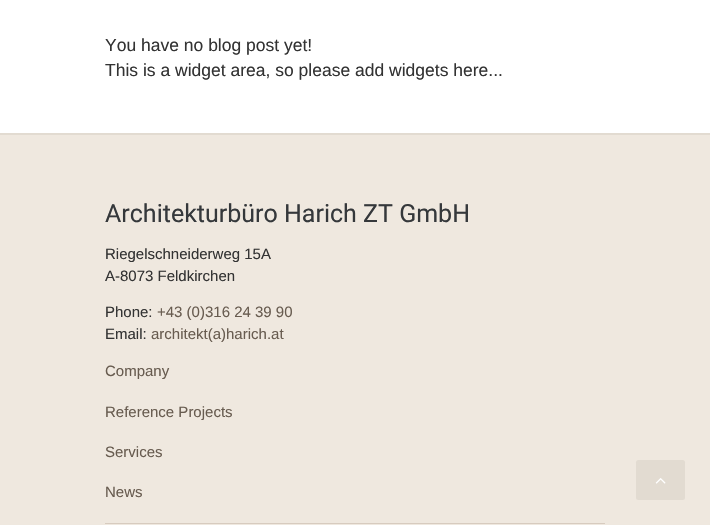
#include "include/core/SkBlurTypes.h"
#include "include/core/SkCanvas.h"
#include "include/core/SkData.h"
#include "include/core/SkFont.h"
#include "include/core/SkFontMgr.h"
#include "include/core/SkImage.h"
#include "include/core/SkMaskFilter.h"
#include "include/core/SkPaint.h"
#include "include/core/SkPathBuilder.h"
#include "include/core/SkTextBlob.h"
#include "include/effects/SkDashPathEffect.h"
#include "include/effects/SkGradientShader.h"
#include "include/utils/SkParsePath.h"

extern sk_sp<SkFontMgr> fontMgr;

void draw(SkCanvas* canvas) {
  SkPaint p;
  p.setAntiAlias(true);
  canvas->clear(SK_ColorWHITE);
  p.setColor(SkColorSetRGB(239, 232, 223));
  canvas->drawRect(SkRect::MakeLTRB(0, 135, 710, 525), p);
  p.setColor(SkColorSetRGB(226, 219, 209));
  canvas->drawRect(SkRect::MakeLTRB(0, 133, 710, 135), p);
  p.setColor(SkColorSetRGB(215, 203, 191));
  canvas->drawRect(SkRect::MakeLTRB(105, 523, 605, 524), p);
  p.setColor(SkColorSetRGB(226, 219, 209));
  canvas->drawRoundRect(SkRect::MakeLTRB(636, 460, 685, 500), 2.5f, 2.5f, p);
  canvas->drawImageRect(SkImages::DeferredFromEncodedData(SkData::MakeFromFileName("images/1.png")), SkRect::MakeLTRB(655, 478, 666, 484), SkSamplingOptions());
  SkFont font1(fontMgr->matchFamilyStyle("Liberation Sans", SkFontStyle::Normal()), 17.5f);
  font1.setSubpixel(true);
  p.setColor(SkColorSetRGB(51, 51, 51));
  canvas->drawString("You have no blog post yet!", 105, 51, font1, p);
  canvas->drawString("This is a widget area, so please add widgets here...", 105, 76, font1, p);
  SkFont font2(fontMgr->matchFamilyStyle("Roboto", SkFontStyle::Normal()), 25);
  font2.setSubpixel(true);
  p.setColor(SkColorSetRGB(53, 56, 59));
  canvas->drawString("Architekturbüro Harich ZT GmbH", 105, 222, font2, p);
  SkFont font3(fontMgr->matchFamilyStyle("Liberation Sans", SkFontStyle::Normal()), 15);
  font3.setSubpixel(true);
  p.setColor(SkColorSetRGB(51, 51, 51));
  canvas->drawString("Riegelschneiderweg 15A", 105, 259, font3, p);
  canvas->drawString("A-8073 Feldkirchen", 105, 281, font3, p);
  canvas->drawString("Phone:", 105, 317, font3, p);
  p.setColor(SkColorSetRGB(104, 92, 80));
  canvas->drawString("+43 (0)316 24 39 90", 157, 317, font3, p);
  p.setColor(SkColorSetRGB(51, 51, 51));
  canvas->drawString("Email:", 105, 339, font3, p);
  p.setColor(SkColorSetRGB(104, 92, 80));
  canvas->drawString("architekt(a)harich.at", 151, 339, font3, p);
  canvas->drawString("Company", 105, 376, font3, p);
  canvas->drawString("Reference Projects", 105, 417, font3, p);
  canvas->drawString("Services", 105, 457, font3, p);
  canvas->drawString("News", 105, 497, font3, p);
}
